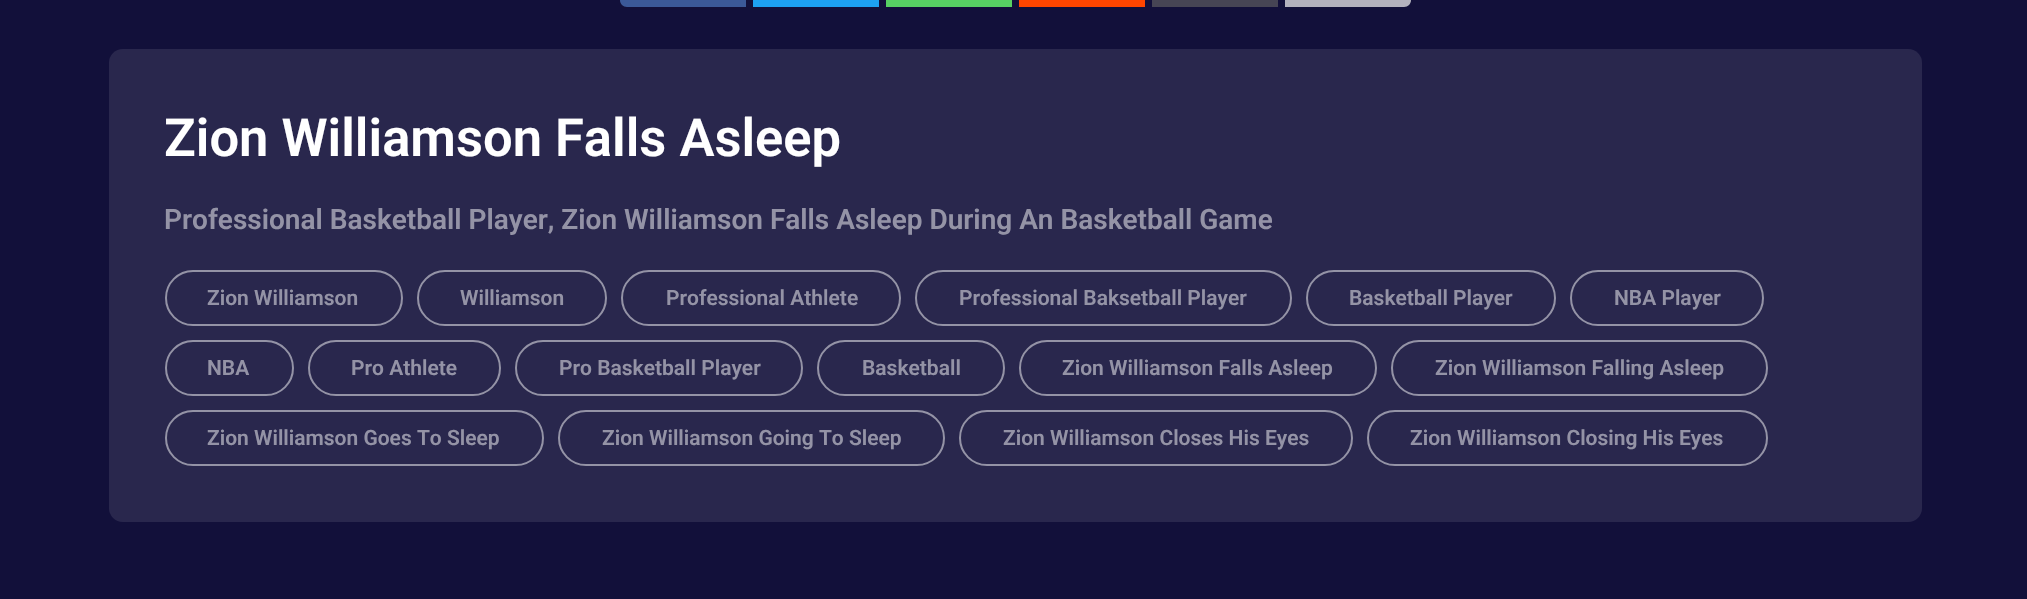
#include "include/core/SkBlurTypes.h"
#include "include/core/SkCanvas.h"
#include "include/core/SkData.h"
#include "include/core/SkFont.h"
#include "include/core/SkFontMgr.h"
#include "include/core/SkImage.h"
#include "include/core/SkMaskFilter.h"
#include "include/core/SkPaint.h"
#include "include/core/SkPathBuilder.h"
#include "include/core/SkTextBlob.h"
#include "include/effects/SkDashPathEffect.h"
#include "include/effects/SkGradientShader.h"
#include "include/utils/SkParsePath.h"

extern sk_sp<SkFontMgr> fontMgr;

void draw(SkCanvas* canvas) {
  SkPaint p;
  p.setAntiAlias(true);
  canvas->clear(SkColorSetRGB(18, 16, 58));
  p.setColor(SkColorSetRGB(59, 89, 152));
  canvas->drawPath(SkPathBuilder().moveTo(627, -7).lineTo(746, -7).lineTo(746, 7).lineTo(627, 7).cubicTo(623, 7, 620, 4, 620, 0).cubicTo(620, -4, 623, -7, 627, -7).close().detach(), p);
  p.setColor(SkColorSetRGB(29, 161, 242));
  canvas->drawRect(SkRect::MakeLTRB(753, 0, 879, 7), p);
  p.setColor(SkColorSetRGB(87, 209, 99));
  canvas->drawRect(SkRect::MakeLTRB(886, 0, 1012, 7), p);
  p.setColor(SkColorSetRGB(255, 69, 0));
  canvas->drawRect(SkRect::MakeLTRB(1019, 0, 1145, 7), p);
  p.setColor(SkColorSetRGB(70, 69, 84));
  canvas->drawRect(SkRect::MakeLTRB(1152, 0, 1278, 7), p);
  p.setColor(SkColorSetRGB(179, 178, 189));
  canvas->drawPath(SkPathBuilder().moveTo(1285, -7).lineTo(1404, -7).cubicTo(1408, -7, 1411, -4, 1411, 0).cubicTo(1411, 4, 1408, 7, 1404, 7).lineTo(1285, 7).close().detach(), p);
  p.setColor(SkColorSetRGB(41, 39, 77));
  canvas->drawRoundRect(SkRect::MakeLTRB(109, 49, 1922, 522), 14, 14, p);
  p.setStyle(SkPaint::kStroke_Style);
  p.setStrokeWidth(2);
  p.setColor(SkColorSetRGB(148, 147, 166));
  canvas->drawRoundRect(SkRect::MakeLTRB(166, 271, 402, 325), 27, 27, p);
  canvas->drawRoundRect(SkRect::MakeLTRB(418, 271, 606, 325), 27, 27, p);
  canvas->drawRoundRect(SkRect::MakeLTRB(622, 271, 900, 325), 27, 27, p);
  canvas->drawRoundRect(SkRect::MakeLTRB(916, 271, 1291, 325), 27, 27, p);
  canvas->drawRoundRect(SkRect::MakeLTRB(1307, 271, 1555, 325), 27, 27, p);
  canvas->drawRoundRect(SkRect::MakeLTRB(1571, 271, 1763, 325), 27, 27, p);
  canvas->drawRoundRect(SkRect::MakeLTRB(166, 341, 293, 395), 27, 27, p);
  canvas->drawRoundRect(SkRect::MakeLTRB(309, 341, 500, 395), 27, 27, p);
  canvas->drawRoundRect(SkRect::MakeLTRB(516, 341, 802, 395), 27, 27, p);
  canvas->drawRoundRect(SkRect::MakeLTRB(818, 341, 1004, 395), 27, 27, p);
  canvas->drawRoundRect(SkRect::MakeLTRB(1020, 341, 1376, 395), 27, 27, p);
  canvas->drawRoundRect(SkRect::MakeLTRB(1392, 341, 1767, 395), 27, 27, p);
  canvas->drawRoundRect(SkRect::MakeLTRB(166, 411, 543, 465), 27, 27, p);
  canvas->drawRoundRect(SkRect::MakeLTRB(559, 411, 944, 465), 27, 27, p);
  canvas->drawRoundRect(SkRect::MakeLTRB(960, 411, 1352, 465), 27, 27, p);
  canvas->drawRoundRect(SkRect::MakeLTRB(1368, 411, 1767, 465), 27, 27, p);
  SkFont font1(fontMgr->matchFamilyStyle("Roboto", SkFontStyle(600, SkFontStyle::kNormal_Width, SkFontStyle::kUpright_Slant)), 52.5f);
  font1.setSubpixel(true);
  p.setStyle(SkPaint::kFill_Style);
  p.setColor(SK_ColorWHITE);
  canvas->drawString("Zion Williamson Falls Asleep", 164, 156, font1, p);
  SkFont font2(fontMgr->matchFamilyStyle("Roboto", SkFontStyle(600, SkFontStyle::kNormal_Width, SkFontStyle::kUpright_Slant)), 28);
  font2.setSubpixel(true);
  p.setColor(SkColorSetRGB(148, 147, 166));
  canvas->drawString("Professional Basketball Player, Zion Williamson Falls Asleep During An Basketball Game", 164, 229, font2, p);
  SkFont font3(fontMgr->matchFamilyStyle("Roboto", SkFontStyle(600, SkFontStyle::kNormal_Width, SkFontStyle::kUpright_Slant)), 21);
  font3.setSubpixel(true);
  canvas->drawString("Zion Williamson", 207, 305, font3, p);
  canvas->drawString("Williamson", 460, 305, font3, p);
  canvas->drawString("Professional Athlete", 666, 305, font3, p);
  canvas->drawString("Professional Baksetball Player", 959, 305, font3, p);
  canvas->drawString("Basketball Player", 1349, 305, font3, p);
  canvas->drawString("NBA Player", 1614, 305, font3, p);
  canvas->drawString("NBA", 207, 375, font3, p);
  canvas->drawString("Pro Athlete", 351, 375, font3, p);
  canvas->drawString("Pro Basketball Player", 559, 375, font3, p);
  canvas->drawString("Basketball", 862, 375, font3, p);
  canvas->drawString("Zion Williamson Falls Asleep", 1062, 375, font3, p);
  canvas->drawString("Zion Williamson Falling Asleep", 1435, 375, font3, p);
  canvas->drawString("Zion Williamson Goes To Sleep", 207, 445, font3, p);
  canvas->drawString("Zion Williamson Going To Sleep", 602, 445, font3, p);
  canvas->drawString("Zion Williamson Closes His Eyes", 1003, 445, font3, p);
  canvas->drawString("Zion Williamson Closing His Eyes", 1410, 445, font3, p);
}
